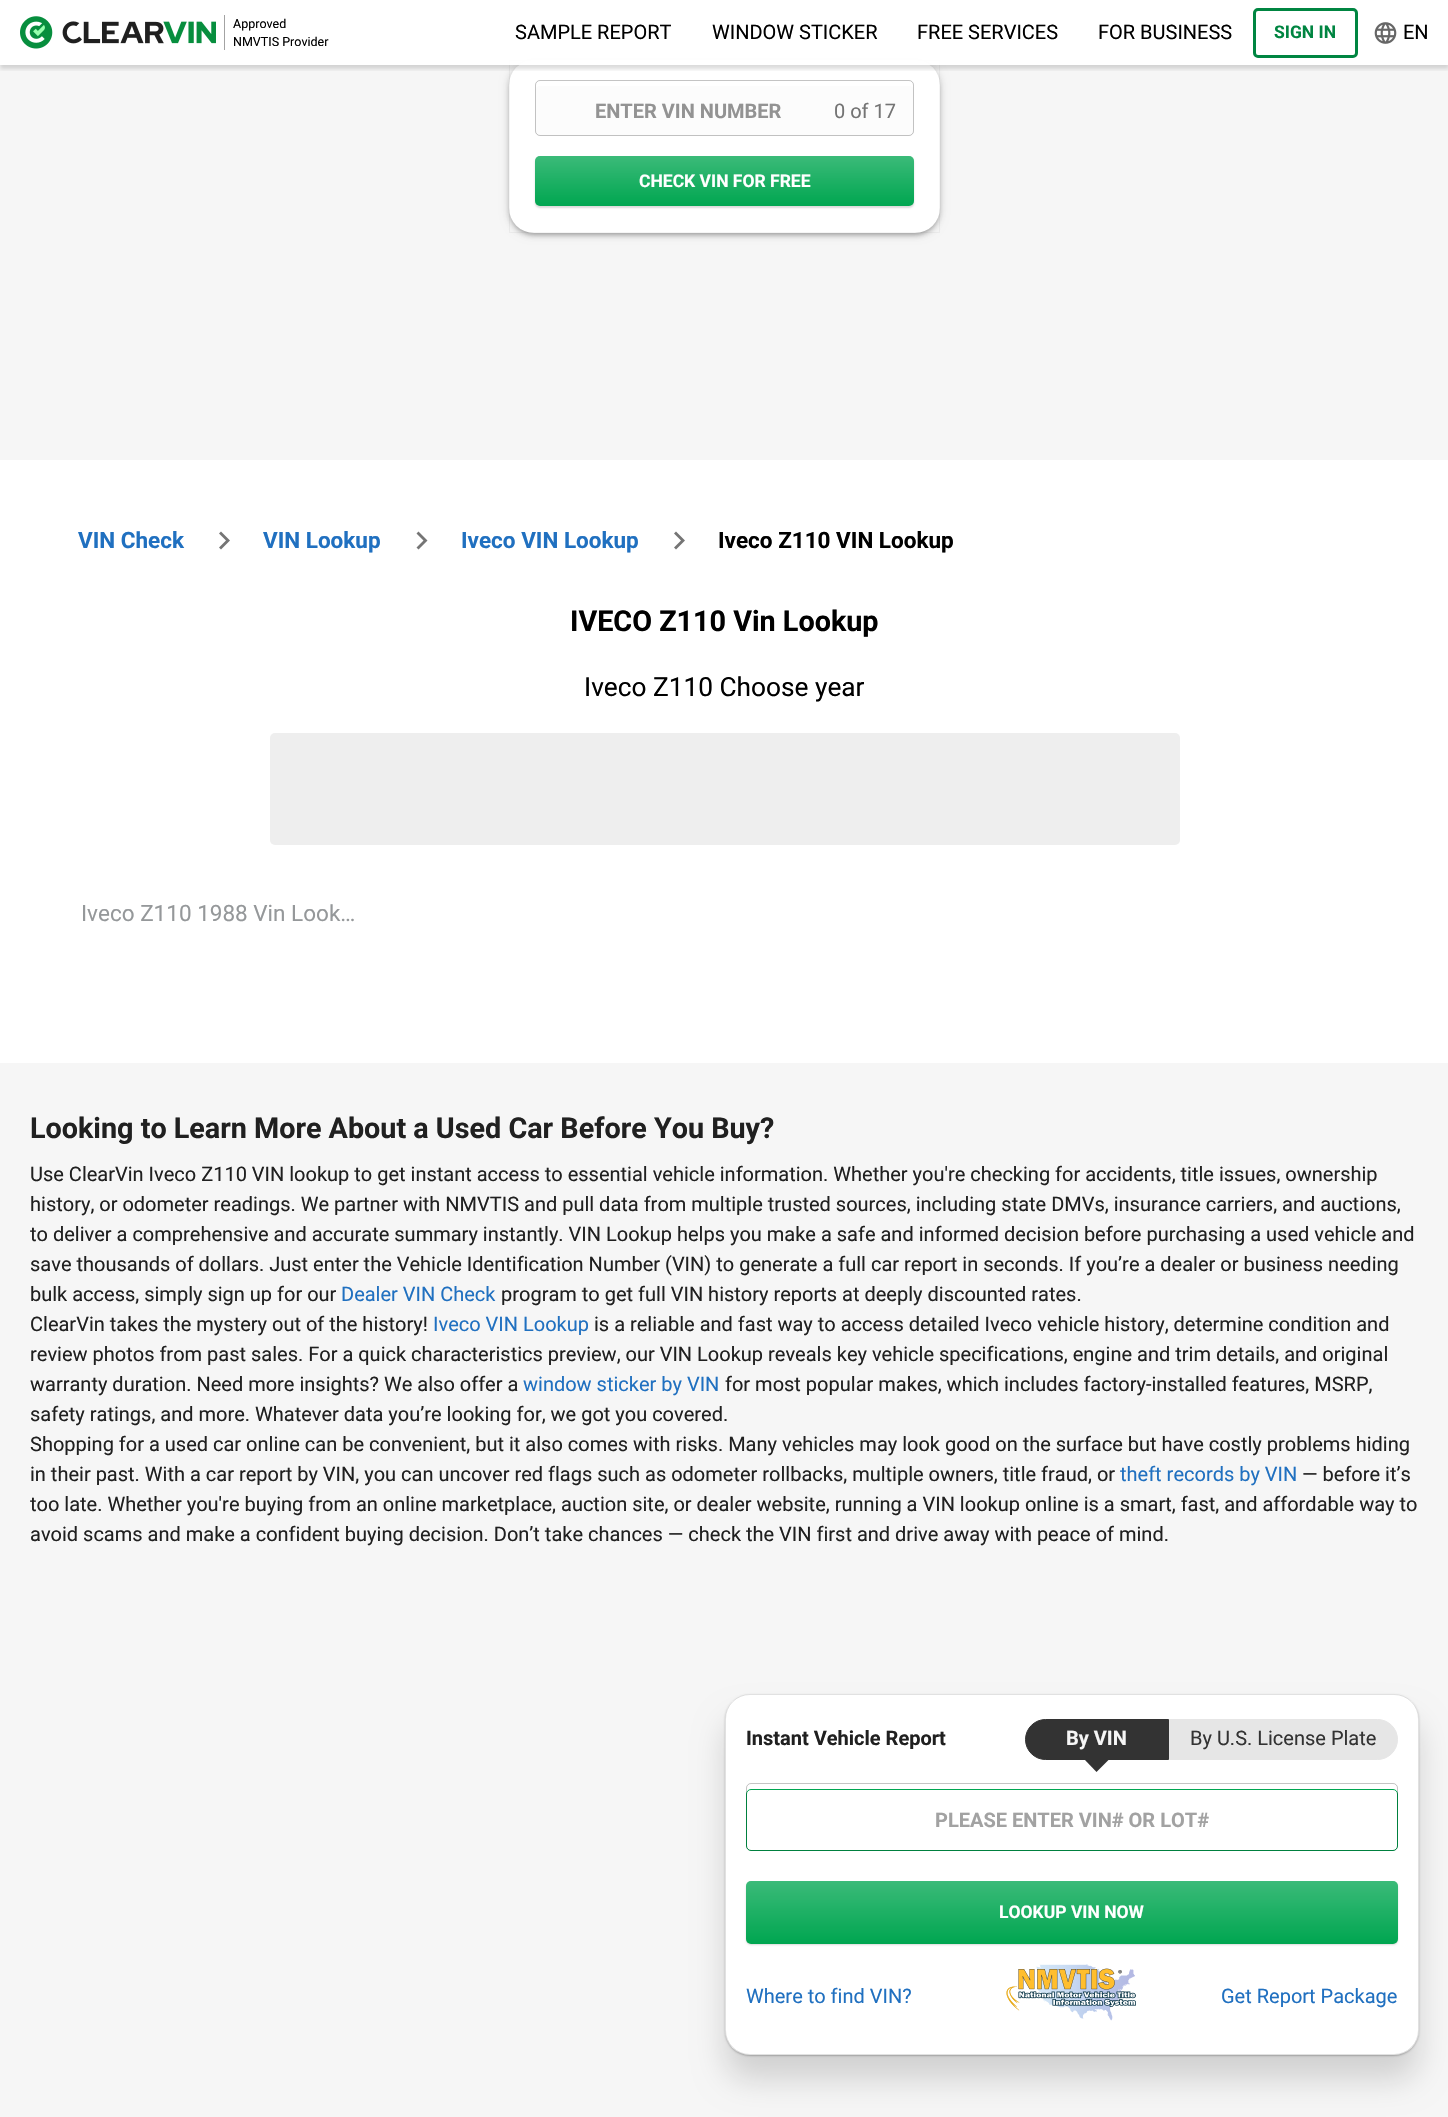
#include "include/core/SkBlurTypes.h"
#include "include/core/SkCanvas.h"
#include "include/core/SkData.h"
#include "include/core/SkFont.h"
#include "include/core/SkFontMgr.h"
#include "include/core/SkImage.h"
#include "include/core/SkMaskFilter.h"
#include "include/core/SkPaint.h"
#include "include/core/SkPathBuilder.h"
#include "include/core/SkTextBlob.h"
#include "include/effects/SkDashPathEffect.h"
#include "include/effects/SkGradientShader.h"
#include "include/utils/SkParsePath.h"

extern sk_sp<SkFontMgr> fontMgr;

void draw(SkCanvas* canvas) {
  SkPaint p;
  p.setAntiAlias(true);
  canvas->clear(SkColorSetRGB(246, 246, 246));
  p.setColor(SkColorSetARGB(31, 0, 0, 0));
  p.setMaskFilter(SkMaskFilter::MakeBlur(kNormal_SkBlurStyle, 5));
  canvas->drawRoundRect(SkRect::MakeLTRB(509, 61, 940, 234), 25, 25, p);
  p.setMaskFilter(nullptr);
  p.setColor(SkColorSetARGB(36, 0, 0, 0));
  p.setMaskFilter(SkMaskFilter::MakeBlur(kNormal_SkBlurStyle, 2.5f));
  canvas->drawRoundRect(SkRect::MakeLTRB(509, 64, 940, 236), 25, 25, p);
  p.setMaskFilter(nullptr);
  p.setColor(SkColorSetARGB(51, 0, 0, 0));
  p.setMaskFilter(SkMaskFilter::MakeBlur(kNormal_SkBlurStyle, 2));
  canvas->drawRoundRect(SkRect::MakeLTRB(511, 66, 938, 234), 23, 23, p);
  p.setMaskFilter(nullptr);
  p.setColor(SK_ColorWHITE);
  canvas->drawRoundRect(SkRect::MakeLTRB(509, 60, 940, 233), 25, 25, p);
  p.setStyle(SkPaint::kStroke_Style);
  p.setStrokeWidth(1);
  p.setColor(SkColorSetARGB(13, 52, 52, 52));
  canvas->drawRect(SkRect::MakeLTRB(509.5f, 60.5f, 939.5f, 232.5f), p);
  canvas->save();
  canvas->clipRect(SkRect::MakeLTRB(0, 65, 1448, 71));
  p.setStyle(SkPaint::kFill_Style);
  p.setColor(SkColorSetARGB(36, 0, 0, 0));
  p.setMaskFilter(SkMaskFilter::MakeBlur(kNormal_SkBlurStyle, 2));
  canvas->drawRect(SkRect::MakeLTRB(0, 4, 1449, 69), p);
  p.setMaskFilter(nullptr);
  canvas->restore();
  p.setColor(SkColorSetARGB(242, 255, 255, 255));
  canvas->drawRect(SkRect::MakeLTRB(0, 0, 1448, 65), p);
  canvas->drawImageRect(SkImages::DeferredFromEncodedData(SkData::MakeFromFileName("images/1.png")), SkRect::MakeLTRB(20, 16, 216, 49), SkSamplingOptions());
  p.setColor(SkColorSetRGB(163, 163, 163));
  canvas->drawRect(SkRect::MakeLTRB(224, 15, 225, 50), p);
  p.setStyle(SkPaint::kStroke_Style);
  p.setStrokeWidth(3);
  p.setColor(SkColorSetRGB(0, 133, 65));
  canvas->drawRoundRect(SkRect::MakeLTRB(1254.5f, 9.5f, 1356.5f, 56.5f), 3.5f, 3.5f, p);
  canvas->drawImageRect(SkImages::DeferredFromEncodedData(SkData::MakeFromFileName("images/2.png")), SkRect::MakeLTRB(1374, 22, 1397, 44), SkSamplingOptions());
  p.setStyle(SkPaint::kFill_Style);
  p.setColor(SkColorSetRGB(252, 252, 252));
  canvas->drawRoundRect(SkRect::MakeLTRB(535, 86, 914, 136), 5, 5, p);
  p.setStyle(SkPaint::kStroke_Style);
  p.setStrokeWidth(1);
  p.setColor(SkColorSetARGB(59, 0, 0, 0));
  canvas->drawRoundRect(SkRect::MakeLTRB(535.5f, 80.5f, 913.5f, 135.5f), 4.5f, 4.5f, p);
  p.setStyle(SkPaint::kFill_Style);
  p.setColor(SkColorSetARGB(38, 0, 0, 0));
  p.setMaskFilter(SkMaskFilter::MakeBlur(kNormal_SkBlurStyle, 1));
  canvas->drawRoundRect(SkRect::MakeLTRB(535, 158, 914, 208), 5, 5, p);
  p.setMaskFilter(nullptr);
  p.setColor(SkColorSetRGB(0, 166, 80));
  canvas->drawRoundRect(SkRect::MakeLTRB(535, 156, 914, 206), 5, 5, p);
  {
    const SkColor colors[] = {SkColorSetARGB(59, 255, 255, 255), SkColorSetARGB(0, 255, 255, 255)};
    const float stops[] = {0, 1};
    const SkPoint ends[] = {{724, 156}, {724, 206}};
    p.setShader(SkGradientShader::MakeLinear(ends, colors, stops, 2, SkTileMode::kClamp));
    p.setAlpha(255);
  }
  canvas->drawRoundRect(SkRect::MakeLTRB(535, 156, 914, 206), 5, 5, p);
  p.setShader(nullptr);
  p.setColor(SK_ColorWHITE);
  canvas->drawRect(SkRect::MakeLTRB(0, 460, 1448, 1063), p);
  p.setColor(SkColorSetRGB(117, 117, 117));
  canvas->drawPath(SkPathBuilder(SkPathFillType::kEvenOdd).moveTo(219, 533.5f).lineTo(221, 531.5f).lineTo(230, 540.5f).lineTo(221, 549.5f).lineTo(219, 547.5f).lineTo(226, 540.5f).close().detach(), p);
  canvas->drawPath(SkPathBuilder(SkPathFillType::kEvenOdd).moveTo(416.5f, 533.5f).lineTo(418.5f, 531.5f).lineTo(427.5f, 540.5f).lineTo(418.5f, 549.5f).lineTo(416.5f, 547.5f).lineTo(423.5f, 540.5f).close().detach(), p);
  canvas->drawPath(SkPathBuilder(SkPathFillType::kEvenOdd).moveTo(674, 533.5f).lineTo(676, 531.5f).lineTo(685, 540.5f).lineTo(676, 549.5f).lineTo(674, 547.5f).lineTo(681, 540.5f).close().detach(), p);
  p.setColor(SkColorSetRGB(238, 238, 238));
  canvas->drawRoundRect(SkRect::MakeLTRB(270, 733, 1180, 845), 5, 5, p);
  p.setColor(SkColorSetARGB(64, 0, 0, 0));
  p.setMaskFilter(SkMaskFilter::MakeBlur(kNormal_SkBlurStyle, 1));
  canvas->drawRoundRect(SkRect::MakeLTRB(725, 1695, 1419, 2056), 25, 25, p);
  p.setMaskFilter(nullptr);
  p.setColor(SkColorSetARGB(38, 0, 0, 0));
  p.setMaskFilter(SkMaskFilter::MakeBlur(kNormal_SkBlurStyle, 15.5f));
  canvas->drawRoundRect(SkRect::MakeLTRB(725, 1719, 1419, 2080), 25, 25, p);
  p.setMaskFilter(nullptr);
  p.setColor(SK_ColorWHITE);
  canvas->drawRoundRect(SkRect::MakeLTRB(725, 1694, 1419, 2055), 25, 25, p);
  p.setStyle(SkPaint::kStroke_Style);
  p.setColor(SkColorSetARGB(38, 52, 52, 52));
  canvas->drawRoundRect(SkRect::MakeLTRB(725.5f, 1694.5f, 1418.5f, 2054.5f), 24.5f, 24.5f, p);
  p.setStyle(SkPaint::kFill_Style);
  p.setColor(SkColorSetRGB(51, 51, 51));
  canvas->drawPath(SkPathBuilder().moveTo(1045.5f, 1719.5f).lineTo(1168.5f, 1719.5f).lineTo(1168.5f, 1759.5f).lineTo(1045.5f, 1759.5f).cubicTo(1034.5f, 1759.5f, 1025.5f, 1750.5f, 1025.5f, 1739.5f).cubicTo(1025.5f, 1728.5f, 1034.5f, 1719.5f, 1045.5f, 1719.5f).close().detach(), p);
  p.setStyle(SkPaint::kStroke_Style);
  canvas->drawPath(SkPathBuilder().moveTo(1045.5f, 1719.5f).lineTo(1168.5f, 1719.5f).lineTo(1168.5f, 1759.5f).lineTo(1045.5f, 1759.5f).cubicTo(1034.5f, 1759.5f, 1025.5f, 1750.5f, 1025.5f, 1739.5f).cubicTo(1025.5f, 1728.5f, 1034.5f, 1719.5f, 1045.5f, 1719.5f).close().detach(), p);
  p.setStyle(SkPaint::kFill_Style);
  canvas->drawPath(SkPathBuilder().moveTo(1096.5f, 1747.5f).lineTo(1109, 1759.5f).lineTo(1096.5f, 1772).lineTo(1084.5f, 1759.5f).close().detach(), p);
  p.setColor(SkColorSetRGB(230, 230, 230));
  canvas->drawPath(SkPathBuilder().moveTo(1169.5f, 1719.5f).lineTo(1377.5f, 1719.5f).cubicTo(1388.5f, 1719.5f, 1397.5f, 1728.5f, 1397.5f, 1739.5f).cubicTo(1397.5f, 1750.5f, 1388.5f, 1759.5f, 1377.5f, 1759.5f).lineTo(1169.5f, 1759.5f).close().detach(), p);
  p.setStyle(SkPaint::kStroke_Style);
  canvas->drawPath(SkPathBuilder().moveTo(1169.5f, 1719.5f).lineTo(1377.5f, 1719.5f).cubicTo(1388.5f, 1719.5f, 1397.5f, 1728.5f, 1397.5f, 1739.5f).cubicTo(1397.5f, 1750.5f, 1388.5f, 1759.5f, 1377.5f, 1759.5f).lineTo(1169.5f, 1759.5f).close().detach(), p);
  p.setColor(SkColorSetRGB(0, 166, 81));
  canvas->drawRoundRect(SkRect::MakeLTRB(746.5f, 1789.5f, 1397.5f, 1850.5f), 4.5f, 4.5f, p);
  p.setColor(SkColorSetARGB(59, 0, 0, 0));
  canvas->drawRoundRect(SkRect::MakeLTRB(746.5f, 1783.5f, 1397.5f, 1850.5f), 4.5f, 4.5f, p);
  p.setStyle(SkPaint::kFill_Style);
  p.setColor(SkColorSetARGB(38, 0, 0, 0));
  p.setMaskFilter(SkMaskFilter::MakeBlur(kNormal_SkBlurStyle, 1));
  canvas->drawRoundRect(SkRect::MakeLTRB(746, 1883, 1398, 1945), 5, 5, p);
  p.setMaskFilter(nullptr);
  p.setColor(SkColorSetRGB(0, 166, 80));
  canvas->drawRoundRect(SkRect::MakeLTRB(746, 1881, 1398, 1944), 5, 5, p);
  {
    const SkColor colors[] = {SkColorSetARGB(59, 255, 255, 255), SkColorSetARGB(0, 255, 255, 255)};
    const float stops[] = {0, 1};
    const SkPoint ends[] = {{1072, 1881}, {1072, 1944}};
    p.setShader(SkGradientShader::MakeLinear(ends, colors, stops, 2, SkTileMode::kClamp));
    p.setAlpha(255);
  }
  canvas->drawRoundRect(SkRect::MakeLTRB(746, 1881, 1398, 1944), 5, 5, p);
  canvas->drawImageRect(SkImages::DeferredFromEncodedData(SkData::MakeFromFileName("images/3.png")), SkRect::MakeLTRB(1006, 1964, 1136, 2021), SkSamplingOptions());
  SkFont font1(fontMgr->matchFamilyStyle("Roboto", SkFontStyle::Normal()), 12.5f);
  font1.setSubpixel(true);
  p.setShader(nullptr);
  p.setColor(SK_ColorBLACK);
  canvas->drawString("Approved", 233, 28, font1, p);
  canvas->drawString("NMVTIS Provider", 233, 46, font1, p);
  SkFont font2(fontMgr->matchFamilyStyle("Roboto", SkFontStyle::Normal()), 20);
  font2.setSubpixel(true);
  canvas->drawString("SAMPLE REPORT", 515, 39, font2, p);
  canvas->drawString("WINDOW STICKER", 712, 39, font2, p);
  canvas->drawString("FREE SERVICES", 917, 39, font2, p);
  canvas->drawString("FOR BUSINESS", 1098, 39, font2, p);
  SkFont font3(fontMgr->matchFamilyStyle("Roboto", SkFontStyle::Bold()), 17.5f);
  font3.setSubpixel(true);
  p.setColor(SkColorSetRGB(0, 133, 65));
  canvas->drawString("SIGN IN", 1274, 38, font3, p);
  p.setColor(SK_ColorBLACK);
  canvas->drawString("EN", 1403, 39, font2, p);
  SkFont font4(fontMgr->matchFamilyStyle("Roboto", SkFontStyle::Bold()), 20);
  font4.setSubpixel(true);
  p.setColor(SkColorSetRGB(147, 147, 147));
  canvas->drawString("ENTER VIN NUMBER", 595, 118, font4, p);
  p.setColor(SkColorSetRGB(116, 116, 116));
  canvas->drawString("0 of 17", 834, 118, font2, p);
  p.setColor(SK_ColorWHITE);
  canvas->drawString("CHECK VIN FOR FREE", 639, 187, font3, p);
  SkFont font5(fontMgr->matchFamilyStyle("Roboto", SkFontStyle::Bold()), 22.5f);
  font5.setSubpixel(true);
  p.setColor(SkColorSetRGB(32, 112, 192));
  canvas->drawString("VIN Check", 78, 548, font5, p);
  canvas->drawString("VIN Lookup", 263, 548, font5, p);
  canvas->drawString("Iveco VIN Lookup", 461, 548, font5, p);
  p.setColor(SK_ColorBLACK);
  canvas->drawString("Iveco Z110 VIN Lookup", 718, 548, font5, p);
  SkFont font6(fontMgr->matchFamilyStyle("Roboto", SkFontStyle::Bold()), 28.75f);
  font6.setSubpixel(true);
  canvas->drawString("IVECO Z110 Vin Lookup", 570, 631, font6, p);
  SkFont font7(fontMgr->matchFamilyStyle("Roboto", SkFontStyle::Normal()), 26.25f);
  font7.setSubpixel(true);
  canvas->drawString("Iveco Z110 Choose year", 584, 696, font7, p);
  SkFont font8(fontMgr->matchFamilyStyle("Roboto", SkFontStyle::Normal()), 22.5f);
  font8.setSubpixel(true);
  p.setColor(SkColorSetRGB(149, 152, 154));
  canvas->drawString("Iveco Z110 1988 Vin Look…", 81, 921, font8, p);
  p.setColor(SkColorSetRGB(32, 32, 32));
  canvas->drawString("Looking to Learn More About a Used Car Before You Buy?", 30, 1138, font6, p);
  canvas->drawString("Use ClearVin Iveco Z110 VIN lookup to get instant access to essential vehicle information. Whether you're checking for accidents, title issues, ownership", 30, 1181, font2, p);
  canvas->drawString("history, or odometer readings. We partner with NMVTIS and pull data from multiple trusted sources, including state DMVs, insurance carriers, and auctions,", 30, 1211, font2, p);
  canvas->drawString("to deliver a comprehensive and accurate summary instantly. VIN Lookup helps you make a safe and informed decision before purchasing a used vehicle and", 30, 1241, font2, p);
  canvas->drawString("save thousands of dollars. Just enter the Vehicle Identification Number (VIN) to generate a full car report in seconds. If you’re a dealer or business needing", 30, 1271, font2, p);
  canvas->drawString("bulk access, simply sign up for our", 30, 1301, font2, p);
  p.setColor(SkColorSetRGB(32, 112, 192));
  canvas->drawString("Dealer VIN Check", 341, 1301, font2, p);
  p.setColor(SkColorSetRGB(32, 32, 32));
  canvas->drawString("program to get full VIN history reports at deeply discounted rates.", 501, 1301, font2, p);
  canvas->drawString("ClearVin takes the mystery out of the history!", 30, 1331, font2, p);
  p.setColor(SkColorSetRGB(32, 112, 192));
  canvas->drawString("Iveco VIN Lookup", 433, 1331, font2, p);
  p.setColor(SkColorSetRGB(32, 32, 32));
  canvas->drawString("is a reliable and fast way to access detailed Iveco vehicle history, determine condition and", 594, 1331, font2, p);
  canvas->drawString("review photos from past sales. For a quick characteristics preview, our VIN Lookup reveals key vehicle specifications, engine and trim details, and original", 30, 1361, font2, p);
  canvas->drawString("warranty duration. Need more insights? We also offer a", 30, 1391, font2, p);
  p.setColor(SkColorSetRGB(32, 112, 192));
  canvas->drawString("window sticker by VIN", 523, 1391, font2, p);
  p.setColor(SkColorSetRGB(32, 32, 32));
  canvas->drawString("for most popular makes, which includes factory-installed features, MSRP,", 725, 1391, font2, p);
  canvas->drawString("safety ratings, and more. Whatever data you’re looking for, we got you covered.", 30, 1421, font2, p);
  canvas->drawString("Shopping for a used car online can be convenient, but it also comes with risks. Many vehicles may look good on the surface but have costly problems hiding", 30, 1451, font2, p);
  canvas->drawString("in their past. With a car report by VIN, you can uncover red flags such as odometer rollbacks, multiple owners, title fraud, or", 30, 1481, font2, p);
  p.setColor(SkColorSetRGB(32, 112, 192));
  canvas->drawString("theft records by VIN", 1120, 1481, font2, p);
  p.setColor(SkColorSetRGB(32, 32, 32));
  canvas->drawString("— before it’s", 1302, 1481, font2, p);
  canvas->drawString("too late. Whether you're buying from an online marketplace, auction site, or dealer website, running a VIN lookup online is a smart, fast, and affordable way to", 30, 1511, font2, p);
  canvas->drawString("avoid scams and make a confident buying decision. Don’t take chances — check the VIN first and drive away with peace of mind.", 30, 1541, font2, p);
  canvas->drawString("Instant Vehicle Report", 746, 1745, font4, p);
  p.setColor(SkColorSetRGB(246, 246, 246));
  canvas->drawString("By VIN", 1066, 1745, font4, p);
  p.setColor(SkColorSetRGB(51, 51, 51));
  canvas->drawString("By U.S. License Plate", 1190, 1745, font2, p);
  p.setColor(SkColorSetRGB(162, 162, 162));
  canvas->drawString("PLEASE ENTER VIN# OR LOT#", 935, 1827, font4, p);
  p.setColor(SK_ColorWHITE);
  canvas->drawString("LOOKUP VIN NOW", 999, 1918, font3, p);
  p.setColor(SkColorSetRGB(32, 112, 192));
  canvas->drawString("Where to find VIN?", 746, 2003, font2, p);
  canvas->drawString("Get Report Package", 1221, 2003, font2, p);
}
